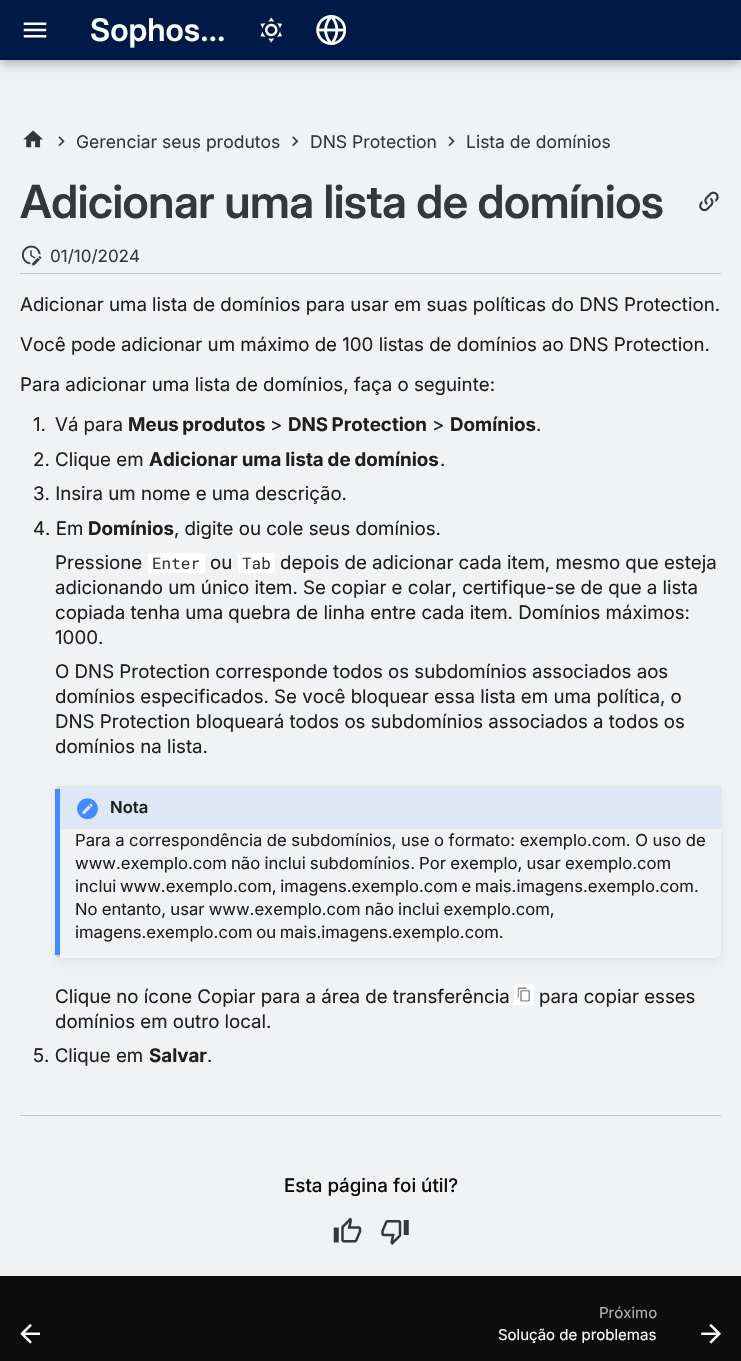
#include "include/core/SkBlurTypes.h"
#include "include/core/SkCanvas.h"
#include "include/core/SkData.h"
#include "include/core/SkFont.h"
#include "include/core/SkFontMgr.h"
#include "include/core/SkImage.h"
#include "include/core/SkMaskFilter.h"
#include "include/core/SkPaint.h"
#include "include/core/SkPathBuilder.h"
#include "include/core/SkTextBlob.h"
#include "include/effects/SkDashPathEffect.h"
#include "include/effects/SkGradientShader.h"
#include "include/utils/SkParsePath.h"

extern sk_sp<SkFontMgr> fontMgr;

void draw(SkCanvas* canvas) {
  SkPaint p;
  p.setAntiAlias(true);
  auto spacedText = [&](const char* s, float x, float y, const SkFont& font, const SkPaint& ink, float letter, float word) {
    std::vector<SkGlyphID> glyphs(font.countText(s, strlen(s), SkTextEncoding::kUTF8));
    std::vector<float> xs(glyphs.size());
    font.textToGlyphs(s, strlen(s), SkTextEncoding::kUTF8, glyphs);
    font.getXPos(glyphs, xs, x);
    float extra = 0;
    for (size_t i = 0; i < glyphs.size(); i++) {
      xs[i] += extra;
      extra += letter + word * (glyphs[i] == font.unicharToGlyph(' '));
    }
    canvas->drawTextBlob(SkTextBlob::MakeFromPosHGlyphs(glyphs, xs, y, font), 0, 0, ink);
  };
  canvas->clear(SkColorSetRGB(240, 242, 244));
  p.setColor(SkColorSetARGB(51, 0, 0, 0));
  p.setMaskFilter(SkMaskFilter::MakeBlur(kNormal_SkBlurStyle, 5));
  canvas->drawRect(SkRect::MakeLTRB(0, 5, 741, 65), p);
  p.setMaskFilter(nullptr);
  p.setColor(SkColorSetARGB(26, 0, 0, 0));
  p.setMaskFilter(SkMaskFilter::MakeBlur(kNormal_SkBlurStyle, 2.5f));
  canvas->drawRect(SkRect::MakeLTRB(0, 0, 741, 60), p);
  p.setMaskFilter(nullptr);
  p.setColor(SkColorSetRGB(0, 26, 71));
  canvas->drawRect(SkRect::MakeLTRB(0, 0, 741, 60), p);
  canvas->drawImageRect(SkImages::DeferredFromEncodedData(SkData::MakeFromFileName("images/1.png")), SkRect::MakeLTRB(23, 22, 47, 38), SkSamplingOptions());
  canvas->drawImageRect(SkImages::DeferredFromEncodedData(SkData::MakeFromFileName("images/2.png")), SkRect::MakeLTRB(260, 17, 282, 43), SkSamplingOptions());
  canvas->drawImageRect(SkImages::DeferredFromEncodedData(SkData::MakeFromFileName("images/3.png")), SkRect::MakeLTRB(316, 15, 346, 45), SkSamplingOptions());
  canvas->drawImageRect(SkImages::DeferredFromEncodedData(SkData::MakeFromFileName("images/4.png")), SkRect::MakeLTRB(23, 130, 43, 148), SkSamplingOptions());
  canvas->drawImageRect(SkImages::DeferredFromEncodedData(SkData::MakeFromFileName("images/5.png")), SkRect::MakeLTRB(58, 136, 65, 147), SkSamplingOptions());
  canvas->drawImageRect(SkImages::DeferredFromEncodedData(SkData::MakeFromFileName("images/6.png")), SkRect::MakeLTRB(292, 136, 299, 147), SkSamplingOptions());
  canvas->drawImageRect(SkImages::DeferredFromEncodedData(SkData::MakeFromFileName("images/5.png")), SkRect::MakeLTRB(448, 136, 455, 147), SkSamplingOptions());
  canvas->drawImageRect(SkImages::DeferredFromEncodedData(SkData::MakeFromFileName("images/7.png")), SkRect::MakeLTRB(699, 191, 719, 212), SkSamplingOptions());
  p.setColor(SkColorSetRGB(194, 197, 202));
  canvas->drawRect(SkRect::MakeLTRB(20, 273, 721, 274), p);
  canvas->drawImageRect(SkImages::DeferredFromEncodedData(SkData::MakeFromFileName("images/8.png")), SkRect::MakeLTRB(21, 245, 42, 266), SkSamplingOptions());
  p.setColor(SK_ColorWHITE);
  canvas->drawRoundRect(SkRect::MakeLTRB(148, 553, 205, 573), 2.5f, 2.5f, p);
  canvas->drawRoundRect(SkRect::MakeLTRB(238, 553, 275, 573), 2.5f, 2.5f, p);
  p.setColor(SkColorSetARGB(26, 0, 0, 0));
  p.setMaskFilter(SkMaskFilter::MakeBlur(kNormal_SkBlurStyle, 0.5f));
  canvas->drawRoundRect(SkRect::MakeLTRB(55, 786, 721, 958), 5, 5, p);
  p.setMaskFilter(nullptr);
  p.setColor(SkColorSetARGB(13, 0, 0, 0));
  p.setMaskFilter(SkMaskFilter::MakeBlur(kNormal_SkBlurStyle, 6));
  canvas->drawRoundRect(SkRect::MakeLTRB(55, 791, 721, 963), 5, 5, p);
  p.setMaskFilter(nullptr);
  p.setColor(SkColorSetRGB(240, 242, 244));
  canvas->drawPath(SkPathBuilder().moveTo(60, 786).lineTo(716, 786).cubicTo(719, 786, 721, 788, 721, 791).lineTo(721, 952).cubicTo(721, 955, 719, 958, 716, 958).lineTo(60, 958).close().detach(), p);
  p.setColor(SkColorSetRGB(68, 138, 255));
  canvas->drawRect(SkRect::MakeLTRB(55, 789, 60, 955), p);
  p.setColor(SkColorSetARGB(26, 68, 138, 255));
  canvas->drawPath(SkPathBuilder().moveTo(62.5f, 786).lineTo(718.5f, 786).cubicTo(720, 786, 721, 787, 721, 788.5f).lineTo(721, 829).lineTo(60, 829).lineTo(60, 788.5f).cubicTo(60, 787, 61, 786, 62.5f, 786).close().detach(), p);
  canvas->drawImageRect(SkImages::DeferredFromEncodedData(SkData::MakeFromFileName("images/9.png")), SkRect::MakeLTRB(77, 798, 98, 820), SkSamplingOptions());
  canvas->drawImageRect(SkImages::DeferredFromEncodedData(SkData::MakeFromFileName("images/10.png")), SkRect::MakeLTRB(514, 984, 534, 1005), SkSamplingOptions());
  p.setColor(SkColorSetRGB(194, 197, 202));
  canvas->drawRect(SkRect::MakeLTRB(20, 1115, 721, 1116), p);
  canvas->drawImageRect(SkImages::DeferredFromEncodedData(SkData::MakeFromFileName("images/11.png")), SkRect::MakeLTRB(333, 1217, 362, 1243), SkSamplingOptions());
  canvas->drawImageRect(SkImages::DeferredFromEncodedData(SkData::MakeFromFileName("images/12.png")), SkRect::MakeLTRB(381, 1220, 409, 1245), SkSamplingOptions());
  p.setColor(SkColorSetRGB(13, 13, 14));
  canvas->drawRect(SkRect::MakeLTRB(0, 1276, 741, 1361), p);
  canvas->drawImageRect(SkImages::DeferredFromEncodedData(SkData::MakeFromFileName("images/13.png")), SkRect::MakeLTRB(20, 1324, 40, 1344), SkSamplingOptions());
  canvas->drawImageRect(SkImages::DeferredFromEncodedData(SkData::MakeFromFileName("images/14.png")), SkRect::MakeLTRB(701, 1324, 721, 1344), SkSamplingOptions());
  SkFont font1(fontMgr->matchFamilyStyle("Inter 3", SkFontStyle(600, SkFontStyle::kNormal_Width, SkFontStyle::kUpright_Slant)), 31.25f);
  font1.setSubpixel(true);
  p.setColor(SK_ColorWHITE);
  canvas->drawString("Sophos…", 90, 41, font1, p);
  SkFont font2(fontMgr->matchFamilyStyle("Inter", SkFontStyle::Normal()), 17.5f);
  font2.setSubpixel(true);
  p.setColor(SkColorSetRGB(54, 55, 56));
  canvas->drawString("Gerenciar seus produtos", 76, 148, font2, p);
  canvas->drawString("DNS Protection", 310, 148, font2, p);
  canvas->drawString("Lista de domínios", 466, 148, font2, p);
  SkFont font3(fontMgr->matchFamilyStyle("Inter", SkFontStyle(600, SkFontStyle::kNormal_Width, SkFontStyle::kUpright_Slant)), 45.8f);
  font3.setSubpixel(true);
  spacedText("Adicionar uma lista de domínios", 20, 218, font3, p, -0.45f, 0);
  SkFont font4(fontMgr->matchFamilyStyle("Inter", SkFontStyle::Normal()), 17);
  font4.setSubpixel(true);
  canvas->drawString("01/10/2024", 50, 262, font4, p);
  SkFont font5(fontMgr->matchFamilyStyle("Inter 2", SkFontStyle::Normal()), 18.75f);
  font5.setSubpixel(true);
  p.setColor(SkColorSetRGB(31, 31, 32));
  canvas->drawString("Adicionar uma lista de domínios para usar em suas políticas do DNS Protection.", 20, 311, font5, p);
  canvas->drawString("Você pode adicionar um máximo de 100 listas de domínios ao DNS Protection.", 20, 351, font5, p);
  canvas->drawString("Para adicionar uma lista de domínios, faça o seguinte:", 20, 391, font5, p);
  canvas->drawString("1.", 33, 431, font5, p);
  canvas->drawString("Vá para", 55, 431, font5, p);
  SkFont font6(fontMgr->matchFamilyStyle("Inter", SkFontStyle::Bold()), 18.75f);
  font6.setSubpixel(true);
  spacedText("Meus produtos", 128, 431, font6, p, 0, -1);
  canvas->drawString(">", 270, 431, font5, p);
  spacedText("DNS Protection", 288, 431, font6, p, 0, -1);
  canvas->drawString(">", 432, 431, font5, p);
  canvas->drawString("Domínios", 450, 431, font6, p);
  canvas->drawString(".", 536, 431, font5, p);
  canvas->drawString("2. Clique em", 33, 466, font5, p);
  spacedText("Adicionar uma lista de domínios", 149, 466, font6, p, 0, -0.5f);
  canvas->drawString(".", 440, 466, font5, p);
  canvas->drawString("3. Insira um nome e uma descrição.", 33, 500, font5, p);
  canvas->drawString("4. Em", 33, 535, font5, p);
  canvas->drawString("Domínios", 88, 535, font6, p);
  canvas->drawString(", digite ou cole seus domínios.", 174, 535, font5, p);
  canvas->drawString("Pressione", 55, 569, font5, p);
  SkFont font7(fontMgr->matchFamilyStyle("Roboto Mono", SkFontStyle::Normal()), 16);
  font7.setSubpixel(true);
  p.setColor(SkColorSetRGB(54, 55, 56));
  canvas->drawString("Enter", 152, 569, font7, p);
  p.setColor(SkColorSetRGB(31, 31, 32));
  canvas->drawString("ou", 210, 569, font5, p);
  p.setColor(SkColorSetRGB(54, 55, 56));
  canvas->drawString("Tab", 242, 569, font7, p);
  p.setColor(SkColorSetRGB(31, 31, 32));
  canvas->drawString("depois de adicionar cada item, mesmo que esteja", 280, 569, font5, p);
  canvas->drawString("adicionando um único item. Se copiar e colar, certifique-se de que a lista", 55, 594, font5, p);
  canvas->drawString("copiada tenha uma quebra de linha entre cada item. Domínios máximos:", 55, 619, font5, p);
  canvas->drawString("1000.", 55, 644, font5, p);
  canvas->drawString("O DNS Protection corresponde todos os subdomínios associados aos", 55, 678, font5, p);
  canvas->drawString("domínios especificados. Se você bloquear essa lista em uma política, o", 55, 703, font5, p);
  canvas->drawString("DNS Protection bloqueará todos os subdomínios associados a todos os", 55, 728, font5, p);
  canvas->drawString("domínios na lista.", 55, 753, font5, p);
  SkFont font8(fontMgr->matchFamilyStyle("Inter 2", SkFontStyle(600, SkFontStyle::kNormal_Width, SkFontStyle::kUpright_Slant)), 16.65f);
  font8.setSubpixel(true);
  canvas->drawString("Nota", 110, 813, font8, p);
  SkFont font9(fontMgr->matchFamilyStyle("Inter", SkFontStyle::Normal()), 16.65f);
  font9.setSubpixel(true);
  spacedText("Para a correspondência de subdomínios, use o formato: exemplo.com. O uso de", 75, 846, font9, p, 0, -0.1f);
  spacedText("www.exemplo.com não inclui subdomínios. Por exemplo, usar exemplo.com", 75, 869, font9, p, 0, -0.5f);
  spacedText("inclui www.exemplo.com, imagens.exemplo.com e mais.imagens.exemplo.com.", 75, 892, font9, p, 0, -1);
  spacedText("No entanto, usar www.exemplo.com não inclui exemplo.com,", 75, 915, font9, p, 0, -0.5f);
  spacedText("imagens.exemplo.com ou mais.imagens.exemplo.com.", 75, 938, font9, p, 0, -1);
  canvas->drawString("Clique no ícone Copiar para a área de transferência", 55, 1003, font5, p);
  canvas->drawString("para copiar esses", 539, 1003, font5, p);
  canvas->drawString("domínios em outro local.", 55, 1028, font5, p);
  canvas->drawString("5. Clique em", 33, 1062, font5, p);
  canvas->drawString("Salvar", 149, 1062, font6, p);
  canvas->drawString(".", 207, 1062, font5, p);
  SkFont font10(fontMgr->matchFamilyStyle("Inter", SkFontStyle(500, SkFontStyle::kNormal_Width, SkFontStyle::kUpright_Slant)), 18.75f);
  font10.setSubpixel(true);
  p.setColor(SkColorSetRGB(13, 13, 14));
  canvas->drawString("Esta página foi útil?", 284, 1192, font10, p);
  SkFont font11(fontMgr->matchFamilyStyle("Inter", SkFontStyle::Normal()), 15);
  font11.setSubpixel(true);
  p.setColor(SkColorSetRGB(182, 182, 183));
  canvas->drawString("Próximo", 599, 1318, font11, p);
  p.setColor(SK_ColorWHITE);
  canvas->drawString("Solução de problemas", 498, 1340, font11, p);
}
